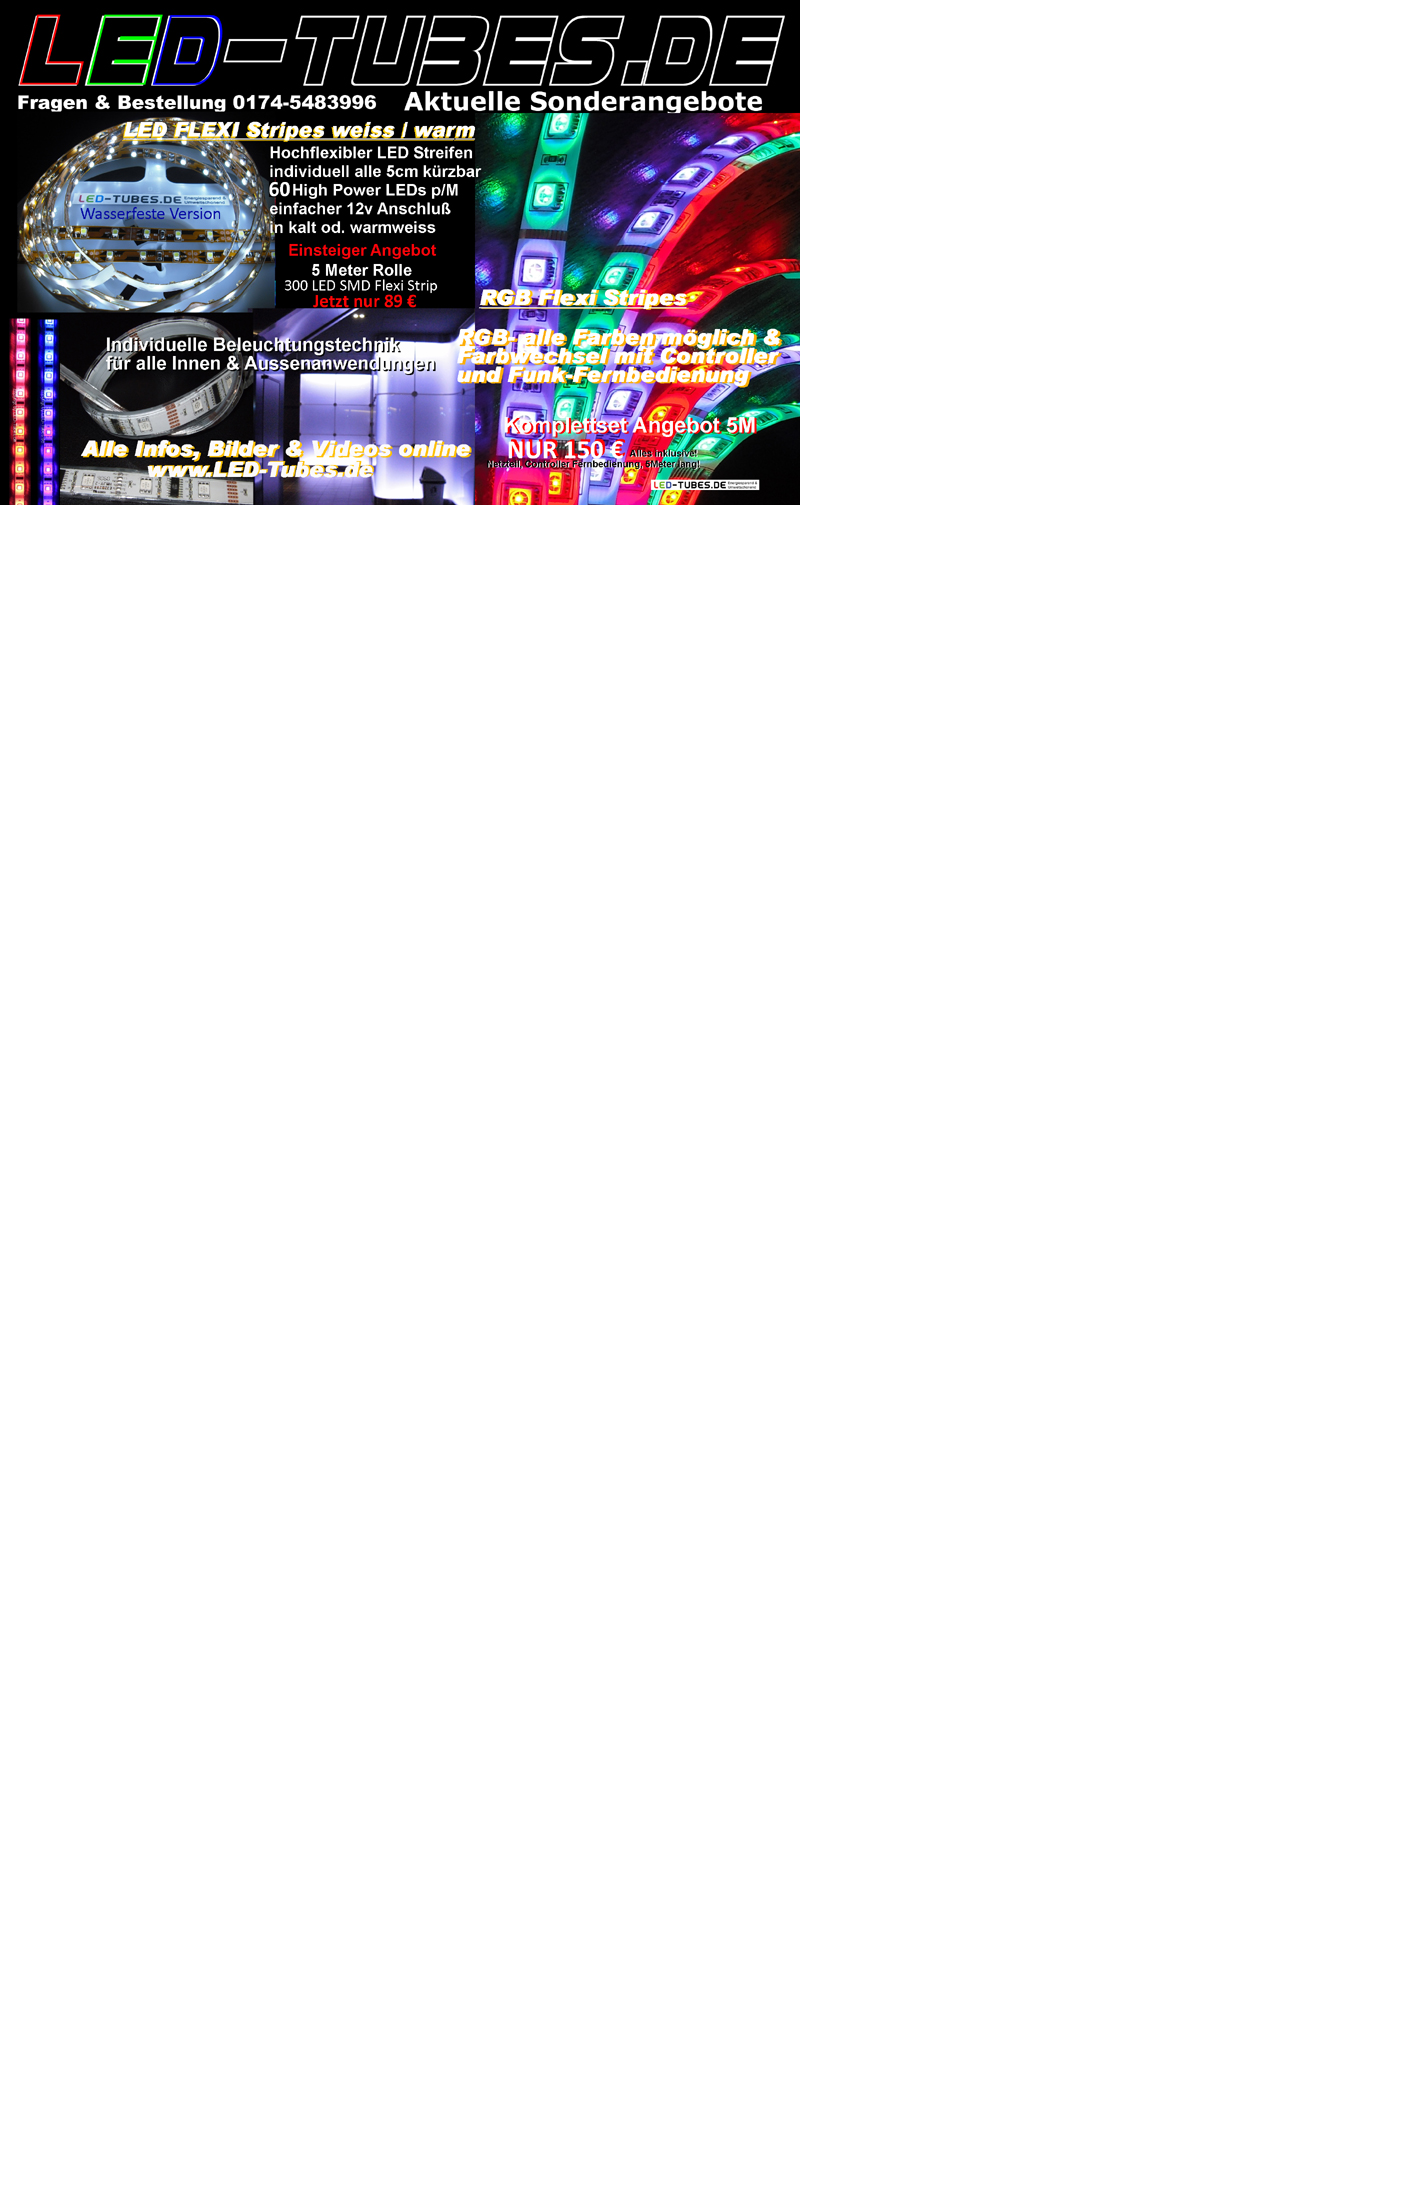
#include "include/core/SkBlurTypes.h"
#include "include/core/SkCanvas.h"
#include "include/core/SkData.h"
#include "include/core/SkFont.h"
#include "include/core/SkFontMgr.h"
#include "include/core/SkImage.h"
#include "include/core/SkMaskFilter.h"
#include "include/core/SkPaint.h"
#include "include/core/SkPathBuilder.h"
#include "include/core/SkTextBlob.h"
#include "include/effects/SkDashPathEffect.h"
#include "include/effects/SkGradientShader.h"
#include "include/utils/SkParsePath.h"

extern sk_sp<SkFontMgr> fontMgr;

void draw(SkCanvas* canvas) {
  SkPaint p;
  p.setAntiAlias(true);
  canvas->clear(SK_ColorWHITE);
  canvas->drawImageRect(SkImages::DeferredFromEncodedData(SkData::MakeFromFileName("images/1.png")), SkRect::MakeLTRB(0, 0, 800, 505), SkSamplingOptions());
}
